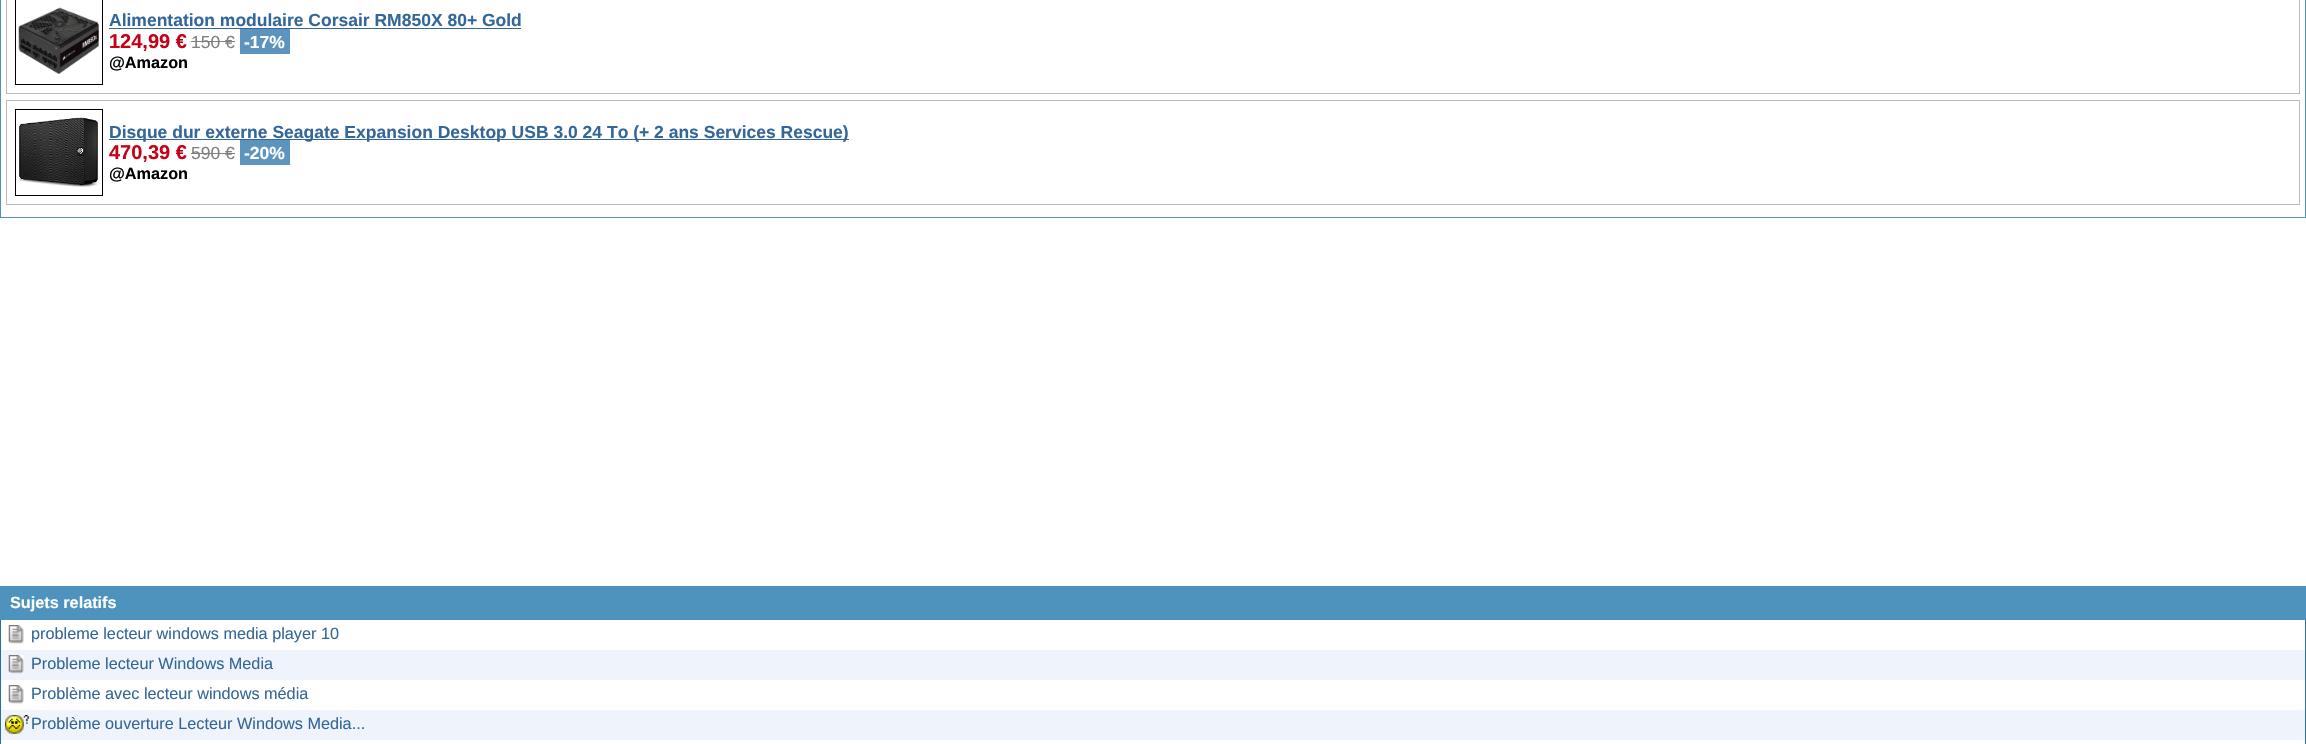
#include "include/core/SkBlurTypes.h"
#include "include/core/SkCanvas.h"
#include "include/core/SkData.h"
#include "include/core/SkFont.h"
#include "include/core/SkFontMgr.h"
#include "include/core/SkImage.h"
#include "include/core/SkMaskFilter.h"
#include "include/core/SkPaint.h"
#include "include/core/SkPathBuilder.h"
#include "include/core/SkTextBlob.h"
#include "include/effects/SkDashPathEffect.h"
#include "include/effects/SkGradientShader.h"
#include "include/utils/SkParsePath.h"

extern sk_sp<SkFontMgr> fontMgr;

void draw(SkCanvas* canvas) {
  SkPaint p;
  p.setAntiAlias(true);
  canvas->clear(SK_ColorWHITE);
  p.setStyle(SkPaint::kStroke_Style);
  p.setStrokeWidth(1);
  p.setColor(SkColorSetRGB(78, 147, 189));
  canvas->drawRect(SkRect::MakeLTRB(0.5f, -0.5f, 2305.5f, 217.5f), p);
  p.setColor(SkColorSetRGB(187, 187, 187));
  canvas->drawRect(SkRect::MakeLTRB(6.5f, -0.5f, 2299.5f, 93.5f), p);
  p.setColor(SK_ColorBLACK);
  canvas->drawRect(SkRect::MakeLTRB(15.5f, -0.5f, 102.5f, 84.5f), p);
  canvas->drawImageRect(SkImages::DeferredFromEncodedData(SkData::MakeFromFileName("images/1.png")), SkRect::MakeLTRB(18, 7, 99, 74), SkSamplingOptions());
  p.setStyle(SkPaint::kFill_Style);
  p.setColor(SkColorSetRGB(51, 102, 153));
  canvas->drawRect(SkRect::MakeLTRB(109, 28, 521, 29), p);
  p.setColor(SkColorSetRGB(128, 128, 128));
  canvas->drawRect(SkRect::MakeLTRB(191, 41, 235, 42), p);
  p.setColor(SkColorSetRGB(92, 148, 189));
  canvas->drawRect(SkRect::MakeLTRB(240, 29, 290, 54), p);
  p.setStyle(SkPaint::kStroke_Style);
  p.setColor(SkColorSetRGB(187, 187, 187));
  canvas->drawRect(SkRect::MakeLTRB(6.5f, 100.5f, 2299.5f, 204.5f), p);
  p.setColor(SK_ColorBLACK);
  canvas->drawRect(SkRect::MakeLTRB(15.5f, 109.5f, 102.5f, 195.5f), p);
  canvas->drawImageRect(SkImages::DeferredFromEncodedData(SkData::MakeFromFileName("images/2.png")), SkRect::MakeLTRB(19, 117, 98, 187), SkSamplingOptions());
  p.setStyle(SkPaint::kFill_Style);
  p.setColor(SkColorSetRGB(51, 102, 153));
  canvas->drawRect(SkRect::MakeLTRB(109, 139, 849, 140), p);
  p.setColor(SkColorSetRGB(128, 128, 128));
  canvas->drawRect(SkRect::MakeLTRB(191, 153, 235, 154), p);
  p.setColor(SkColorSetRGB(78, 147, 189));
  canvas->drawRect(SkRect::MakeLTRB(0, 586, 2306, 620), p);
  p.setColor(SkColorSetRGB(44, 108, 157));
  canvas->drawRect(SkRect::MakeLTRB(2305, 620, 2306, 744), p);
  canvas->drawRect(SkRect::MakeLTRB(0, 620, 1, 744), p);
  canvas->drawImageRect(SkImages::DeferredFromEncodedData(SkData::MakeFromFileName("images/3.png")), SkRect::MakeLTRB(8, 625, 24, 644), SkSamplingOptions());
  p.setColor(SkColorSetRGB(239, 244, 252));
  canvas->drawRect(SkRect::MakeLTRB(1, 650, 2305, 680), p);
  canvas->drawImageRect(SkImages::DeferredFromEncodedData(SkData::MakeFromFileName("images/4.png")), SkRect::MakeLTRB(8, 655, 24, 674), SkSamplingOptions());
  canvas->drawImageRect(SkImages::DeferredFromEncodedData(SkData::MakeFromFileName("images/3.png")), SkRect::MakeLTRB(8, 685, 24, 704), SkSamplingOptions());
  canvas->drawRect(SkRect::MakeLTRB(1, 710, 2305, 740), p);
  canvas->drawImageRect(SkImages::DeferredFromEncodedData(SkData::MakeFromFileName("images/5.png")), SkRect::MakeLTRB(5, 715, 29, 734), SkSamplingOptions());
  SkFont font1(fontMgr->matchFamilyStyle("Liberation Sans", SkFontStyle::Bold()), 17.5f);
  font1.setSubpixel(true);
  p.setColor(SkColorSetRGB(51, 102, 153));
  canvas->drawString("Alimentation modulaire Corsair RM850X 80+ Gold", 109, 26, font1, p);
  SkFont font2(fontMgr->matchFamilyStyle("Liberation Sans", SkFontStyle::Bold()), 20);
  font2.setSubpixel(true);
  p.setColor(SkColorSetRGB(198, 0, 23));
  canvas->drawString("124,99 €", 109, 48, font2, p);
  SkFont font3(fontMgr->matchFamilyStyle("Liberation Sans", SkFontStyle::Normal()), 17.5f);
  font3.setSubpixel(true);
  p.setColor(SkColorSetRGB(128, 128, 128));
  canvas->drawString("150 €", 191, 48, font3, p);
  p.setColor(SK_ColorWHITE);
  canvas->drawString("-17%", 244, 48, font1, p);
  SkFont font4(fontMgr->matchFamilyStyle("Liberation Sans", SkFontStyle::Bold()), 16.25f);
  font4.setSubpixel(true);
  p.setColor(SK_ColorBLACK);
  canvas->drawString("@Amazon", 109, 68, font4, p);
  p.setColor(SkColorSetRGB(51, 102, 153));
  canvas->drawString("Disque dur externe Seagate Expansion Desktop USB 3.0 24 To (+ 2 ans Services Rescue)", 109, 138, font1, p);
  p.setColor(SkColorSetRGB(198, 0, 23));
  canvas->drawString("470,39 €", 109, 159, font2, p);
  p.setColor(SkColorSetRGB(128, 128, 128));
  canvas->drawString("590 €", 191, 159, font3, p);
  p.setColor(SkColorSetRGB(92, 148, 189));
  canvas->drawRect(SkRect::MakeLTRB(240, 140, 290, 165), p);
  p.setColor(SK_ColorWHITE);
  canvas->drawString("-20%", 244, 159, font1, p);
  p.setColor(SK_ColorBLACK);
  canvas->drawString("@Amazon", 109, 179, font4, p);
  p.setColor(SK_ColorWHITE);
  canvas->drawString("Sujets relatifs", 10, 608, font4, p);
  SkFont font5(fontMgr->matchFamilyStyle("Liberation Sans", SkFontStyle::Normal()), 16.25f);
  font5.setSubpixel(true);
  p.setColor(SkColorSetRGB(51, 102, 153));
  canvas->drawString("probleme lecteur windows media player 10", 31, 639, font5, p);
  canvas->drawString("Probleme lecteur Windows Media", 31, 669, font5, p);
  canvas->drawString("Problème avec lecteur windows média", 31, 699, font5, p);
  canvas->drawString("Problème ouverture Lecteur Windows Media...", 31, 729, font5, p);
}
